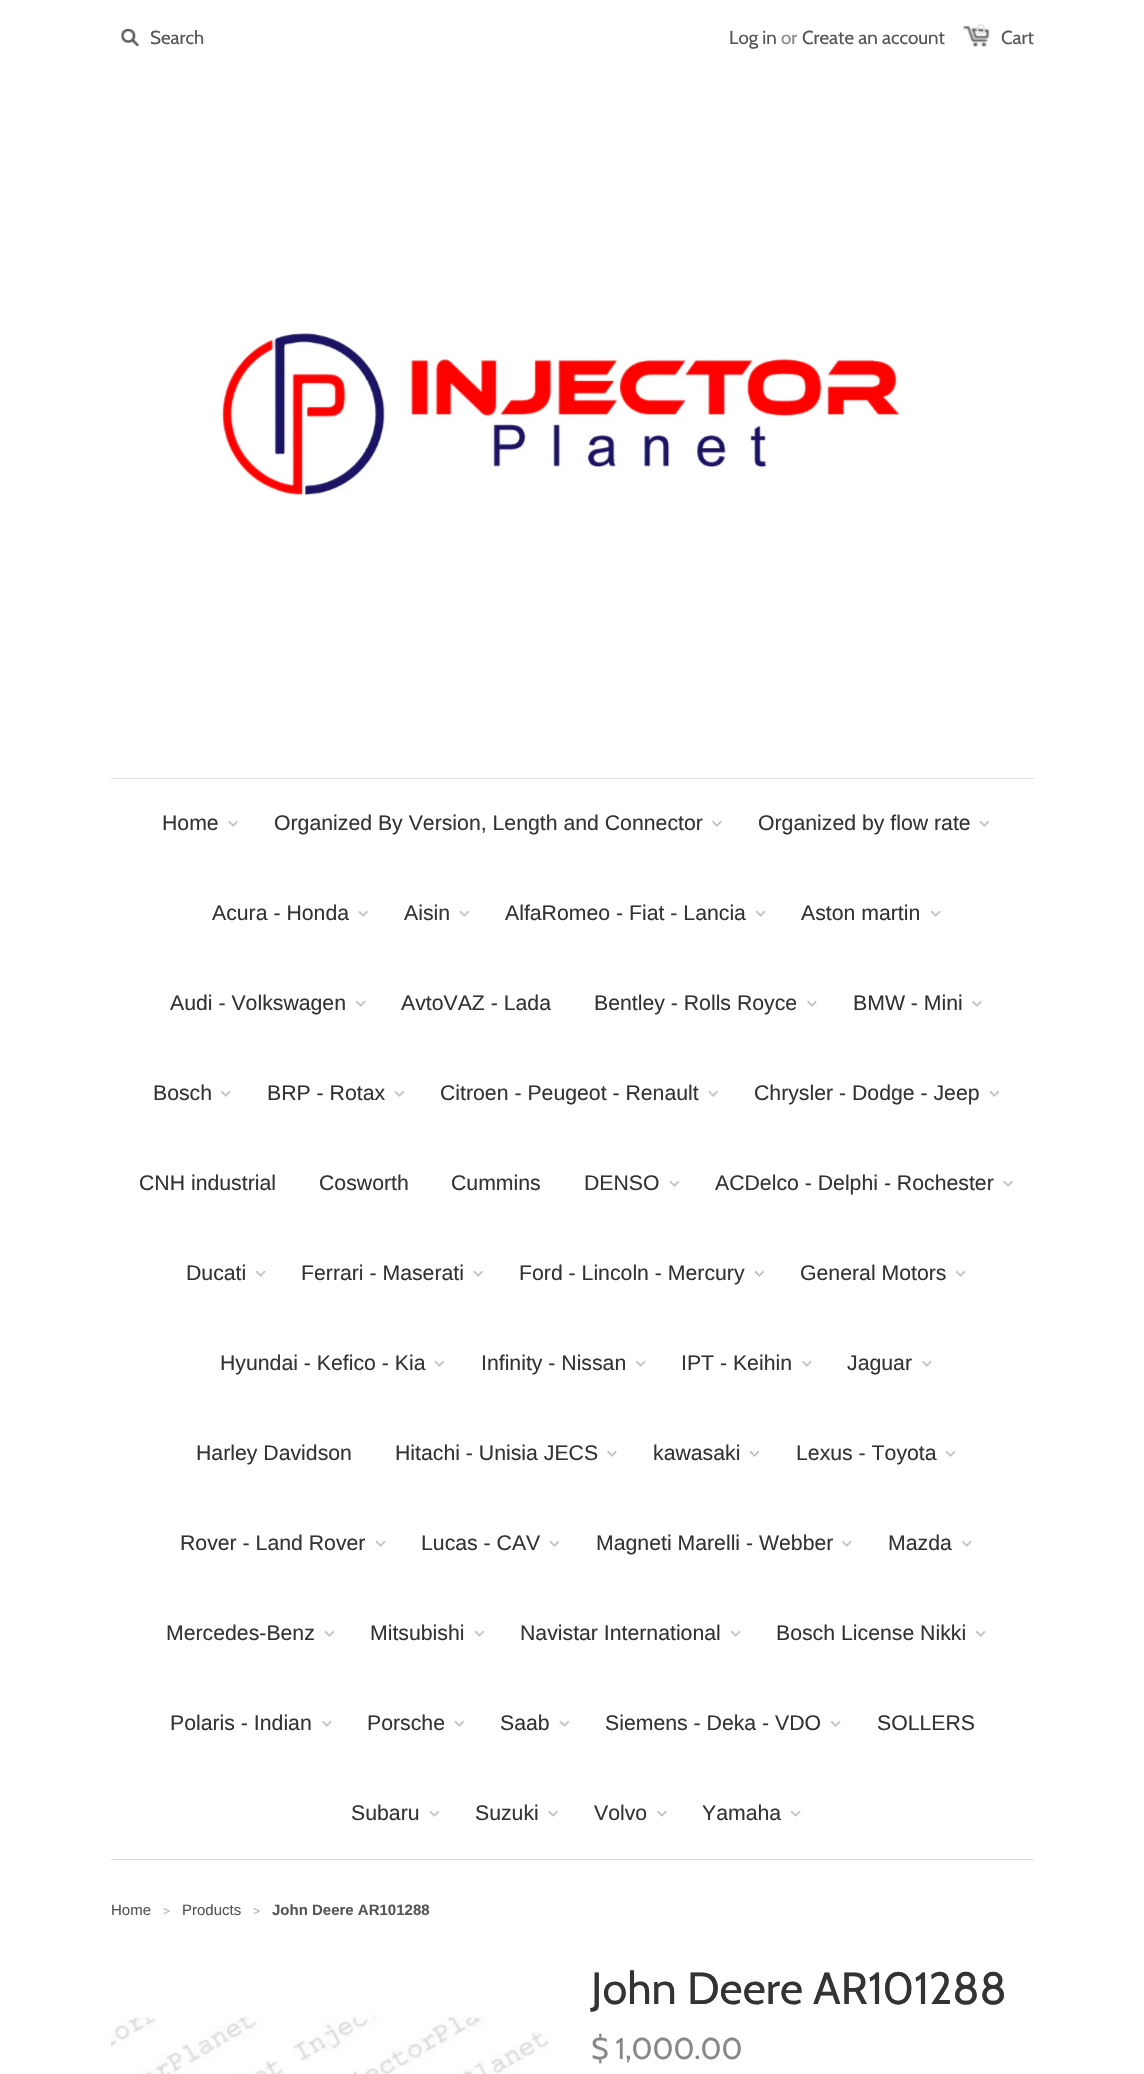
#include "include/core/SkBlurTypes.h"
#include "include/core/SkCanvas.h"
#include "include/core/SkData.h"
#include "include/core/SkFont.h"
#include "include/core/SkFontMgr.h"
#include "include/core/SkImage.h"
#include "include/core/SkMaskFilter.h"
#include "include/core/SkPaint.h"
#include "include/core/SkPathBuilder.h"
#include "include/core/SkTextBlob.h"
#include "include/effects/SkDashPathEffect.h"
#include "include/effects/SkGradientShader.h"
#include "include/utils/SkParsePath.h"

extern sk_sp<SkFontMgr> fontMgr;

void draw(SkCanvas* canvas) {
  SkPaint p;
  p.setAntiAlias(true);
  canvas->clear(SK_ColorWHITE);
  canvas->drawImageRect(SkImages::DeferredFromEncodedData(SkData::MakeFromFileName("images/1.png")), SkRect::MakeLTRB(121, 28, 139, 47), SkSamplingOptions());
  canvas->drawImageRect(SkImages::DeferredFromEncodedData(SkData::MakeFromFileName("images/2.png")), SkRect::MakeLTRB(963, 26, 990, 47), SkSamplingOptions());
  canvas->drawImageRect(SkImages::DeferredFromEncodedData(SkData::MakeFromFileName("images/3.png")), SkRect::MakeLTRB(221, 333, 902, 496), SkSamplingOptions());
  p.setColor(SkColorSetRGB(221, 221, 221));
  canvas->drawRect(SkRect::MakeLTRB(111, 778, 1034, 779), p);
  canvas->drawRect(SkRect::MakeLTRB(111, 1859, 1034, 1860), p);
  canvas->drawImageRect(SkImages::DeferredFromEncodedData(SkData::MakeFromFileName("images/4.png")), SkRect::MakeLTRB(228, 821, 239, 827), SkSamplingOptions());
  canvas->drawImageRect(SkImages::DeferredFromEncodedData(SkData::MakeFromFileName("images/5.png")), SkRect::MakeLTRB(712, 820, 722, 827), SkSamplingOptions());
  canvas->drawImageRect(SkImages::DeferredFromEncodedData(SkData::MakeFromFileName("images/6.png")), SkRect::MakeLTRB(979, 820, 989, 827), SkSamplingOptions());
  canvas->drawImageRect(SkImages::DeferredFromEncodedData(SkData::MakeFromFileName("images/7.png")), SkRect::MakeLTRB(358, 910, 368, 917), SkSamplingOptions());
  canvas->drawImageRect(SkImages::DeferredFromEncodedData(SkData::MakeFromFileName("images/8.png")), SkRect::MakeLTRB(459, 911, 470, 917), SkSamplingOptions());
  canvas->drawImageRect(SkImages::DeferredFromEncodedData(SkData::MakeFromFileName("images/9.png")), SkRect::MakeLTRB(756, 911, 766, 917), SkSamplingOptions());
  canvas->drawImageRect(SkImages::DeferredFromEncodedData(SkData::MakeFromFileName("images/10.png")), SkRect::MakeLTRB(931, 911, 941, 917), SkSamplingOptions());
  canvas->drawImageRect(SkImages::DeferredFromEncodedData(SkData::MakeFromFileName("images/9.png")), SkRect::MakeLTRB(356, 1001, 366, 1007), SkSamplingOptions());
  canvas->drawImageRect(SkImages::DeferredFromEncodedData(SkData::MakeFromFileName("images/5.png")), SkRect::MakeLTRB(807, 1000, 817, 1007), SkSamplingOptions());
  canvas->drawImageRect(SkImages::DeferredFromEncodedData(SkData::MakeFromFileName("images/11.png")), SkRect::MakeLTRB(972, 1000, 982, 1007), SkSamplingOptions());
  canvas->drawImageRect(SkImages::DeferredFromEncodedData(SkData::MakeFromFileName("images/12.png")), SkRect::MakeLTRB(220, 1090, 231, 1097), SkSamplingOptions());
  canvas->drawImageRect(SkImages::DeferredFromEncodedData(SkData::MakeFromFileName("images/6.png")), SkRect::MakeLTRB(394, 1090, 404, 1097), SkSamplingOptions());
  canvas->drawImageRect(SkImages::DeferredFromEncodedData(SkData::MakeFromFileName("images/13.png")), SkRect::MakeLTRB(708, 1090, 718, 1097), SkSamplingOptions());
  canvas->drawImageRect(SkImages::DeferredFromEncodedData(SkData::MakeFromFileName("images/14.png")), SkRect::MakeLTRB(990, 1090, 999, 1097), SkSamplingOptions());
  canvas->drawImageRect(SkImages::DeferredFromEncodedData(SkData::MakeFromFileName("images/8.png")), SkRect::MakeLTRB(669, 1181, 680, 1187), SkSamplingOptions());
  canvas->drawImageRect(SkImages::DeferredFromEncodedData(SkData::MakeFromFileName("images/4.png")), SkRect::MakeLTRB(1003, 1181, 1014, 1187), SkSamplingOptions());
  canvas->drawImageRect(SkImages::DeferredFromEncodedData(SkData::MakeFromFileName("images/9.png")), SkRect::MakeLTRB(256, 1271, 266, 1277), SkSamplingOptions());
  canvas->drawImageRect(SkImages::DeferredFromEncodedData(SkData::MakeFromFileName("images/15.png")), SkRect::MakeLTRB(473, 1271, 484, 1277), SkSamplingOptions());
  canvas->drawImageRect(SkImages::DeferredFromEncodedData(SkData::MakeFromFileName("images/14.png")), SkRect::MakeLTRB(755, 1270, 764, 1277), SkSamplingOptions());
  canvas->drawImageRect(SkImages::DeferredFromEncodedData(SkData::MakeFromFileName("images/16.png")), SkRect::MakeLTRB(956, 1270, 966, 1277), SkSamplingOptions());
  canvas->drawImageRect(SkImages::DeferredFromEncodedData(SkData::MakeFromFileName("images/17.png")), SkRect::MakeLTRB(434, 1360, 445, 1367), SkSamplingOptions());
  canvas->drawImageRect(SkImages::DeferredFromEncodedData(SkData::MakeFromFileName("images/18.png")), SkRect::MakeLTRB(636, 1360, 646, 1367), SkSamplingOptions());
  canvas->drawImageRect(SkImages::DeferredFromEncodedData(SkData::MakeFromFileName("images/19.png")), SkRect::MakeLTRB(802, 1361, 812, 1367), SkSamplingOptions());
  canvas->drawImageRect(SkImages::DeferredFromEncodedData(SkData::MakeFromFileName("images/19.png")), SkRect::MakeLTRB(922, 1361, 932, 1367), SkSamplingOptions());
  canvas->drawImageRect(SkImages::DeferredFromEncodedData(SkData::MakeFromFileName("images/5.png")), SkRect::MakeLTRB(607, 1450, 617, 1457), SkSamplingOptions());
  canvas->drawImageRect(SkImages::DeferredFromEncodedData(SkData::MakeFromFileName("images/20.png")), SkRect::MakeLTRB(750, 1450, 759, 1457), SkSamplingOptions());
  canvas->drawImageRect(SkImages::DeferredFromEncodedData(SkData::MakeFromFileName("images/16.png")), SkRect::MakeLTRB(946, 1450, 956, 1457), SkSamplingOptions());
  canvas->drawImageRect(SkImages::DeferredFromEncodedData(SkData::MakeFromFileName("images/16.png")), SkRect::MakeLTRB(376, 1540, 386, 1547), SkSamplingOptions());
  canvas->drawImageRect(SkImages::DeferredFromEncodedData(SkData::MakeFromFileName("images/17.png")), SkRect::MakeLTRB(549, 1540, 560, 1547), SkSamplingOptions());
  canvas->drawImageRect(SkImages::DeferredFromEncodedData(SkData::MakeFromFileName("images/19.png")), SkRect::MakeLTRB(842, 1541, 852, 1547), SkSamplingOptions());
  canvas->drawImageRect(SkImages::DeferredFromEncodedData(SkData::MakeFromFileName("images/19.png")), SkRect::MakeLTRB(962, 1541, 972, 1547), SkSamplingOptions());
  canvas->drawImageRect(SkImages::DeferredFromEncodedData(SkData::MakeFromFileName("images/21.png")), SkRect::MakeLTRB(324, 1630, 335, 1637), SkSamplingOptions());
  canvas->drawImageRect(SkImages::DeferredFromEncodedData(SkData::MakeFromFileName("images/8.png")), SkRect::MakeLTRB(474, 1631, 485, 1637), SkSamplingOptions());
  canvas->drawImageRect(SkImages::DeferredFromEncodedData(SkData::MakeFromFileName("images/16.png")), SkRect::MakeLTRB(731, 1630, 741, 1637), SkSamplingOptions());
  canvas->drawImageRect(SkImages::DeferredFromEncodedData(SkData::MakeFromFileName("images/16.png")), SkRect::MakeLTRB(976, 1630, 986, 1637), SkSamplingOptions());
  canvas->drawImageRect(SkImages::DeferredFromEncodedData(SkData::MakeFromFileName("images/19.png")), SkRect::MakeLTRB(322, 1721, 332, 1727), SkSamplingOptions());
  canvas->drawImageRect(SkImages::DeferredFromEncodedData(SkData::MakeFromFileName("images/21.png")), SkRect::MakeLTRB(454, 1720, 465, 1727), SkSamplingOptions());
  canvas->drawImageRect(SkImages::DeferredFromEncodedData(SkData::MakeFromFileName("images/21.png")), SkRect::MakeLTRB(559, 1720, 570, 1727), SkSamplingOptions());
  canvas->drawImageRect(SkImages::DeferredFromEncodedData(SkData::MakeFromFileName("images/16.png")), SkRect::MakeLTRB(831, 1720, 841, 1727), SkSamplingOptions());
  canvas->drawImageRect(SkImages::DeferredFromEncodedData(SkData::MakeFromFileName("images/22.png")), SkRect::MakeLTRB(429, 1810, 440, 1817), SkSamplingOptions());
  canvas->drawImageRect(SkImages::DeferredFromEncodedData(SkData::MakeFromFileName("images/4.png")), SkRect::MakeLTRB(548, 1811, 559, 1817), SkSamplingOptions());
  canvas->drawImageRect(SkImages::DeferredFromEncodedData(SkData::MakeFromFileName("images/19.png")), SkRect::MakeLTRB(657, 1811, 667, 1817), SkSamplingOptions());
  canvas->drawImageRect(SkImages::DeferredFromEncodedData(SkData::MakeFromFileName("images/10.png")), SkRect::MakeLTRB(791, 1811, 801, 1817), SkSamplingOptions());
  canvas->drawImageRect(SkImages::DeferredFromEncodedData(SkData::MakeFromFileName("images/23.png")), SkRect::MakeLTRB(111, 2015, 549, 2074), SkSamplingOptions());
  SkFont font1(fontMgr->matchFamilyStyle("Cabin", SkFontStyle::Normal()), 18.75f);
  font1.setSubpixel(true);
  p.setColor(SkColorSetRGB(85, 85, 85));
  canvas->drawString("Search", 150, 44, font1, p);
  canvas->drawString("Log in", 729, 44, font1, p);
  p.setColor(SkColorSetRGB(136, 136, 136));
  canvas->drawString("or", 781, 44, font1, p);
  p.setColor(SkColorSetRGB(85, 85, 85));
  canvas->drawString("Create an account", 802, 44, font1, p);
  SkFont font2(fontMgr->matchFamilyStyle("Cabin", SkFontStyle::Normal()), 14);
  font2.setSubpixel(true);
  p.setColor(SkColorSetRGB(227, 226, 227));
  canvas->drawString("0", 976, 34, font2, p);
  p.setColor(SkColorSetRGB(85, 85, 85));
  canvas->drawString("Cart", 1001, 44, font1, p);
  SkFont font3(fontMgr->matchFamilyStyle("Liberation Sans", SkFontStyle::Normal()), 21.25f);
  font3.setSubpixel(true);
  p.setColor(SkColorSetRGB(51, 51, 51));
  canvas->drawString("Home", 162, 830, font3, p);
  canvas->drawString("Organized By Version, Length and Connector", 274, 830, font3, p);
  canvas->drawString("Organized by flow rate", 758, 830, font3, p);
  canvas->drawString("Acura - Honda", 212, 920, font3, p);
  canvas->drawString("Aisin", 404, 920, font3, p);
  canvas->drawString("AlfaRomeo - Fiat - Lancia", 505, 920, font3, p);
  canvas->drawString("Aston martin", 801, 920, font3, p);
  canvas->drawString("Audi - Volkswagen", 170, 1010, font3, p);
  canvas->drawString("AvtoVAZ - Lada", 401, 1010, font3, p);
  canvas->drawString("Bentley - Rolls Royce", 594, 1010, font3, p);
  canvas->drawString("BMW - Mini", 853, 1010, font3, p);
  canvas->drawString("Bosch", 153, 1100, font3, p);
  canvas->drawString("BRP - Rotax", 267, 1100, font3, p);
  canvas->drawString("Citroen - Peugeot - Renault", 440, 1100, font3, p);
  canvas->drawString("Chrysler - Dodge - Jeep", 754, 1100, font3, p);
  canvas->drawString("CNH industrial", 139, 1190, font3, p);
  canvas->drawString("Cosworth", 319, 1190, font3, p);
  canvas->drawString("Cummins", 451, 1190, font3, p);
  canvas->drawString("DENSO", 584, 1190, font3, p);
  canvas->drawString("ACDelco - Delphi - Rochester", 715, 1190, font3, p);
  canvas->drawString("Ducati", 186, 1280, font3, p);
  canvas->drawString("Ferrari - Maserati", 301, 1280, font3, p);
  canvas->drawString("Ford - Lincoln - Mercury", 519, 1280, font3, p);
  canvas->drawString("General Motors", 800, 1280, font3, p);
  canvas->drawString("Hyundai - Kefico - Kia", 220, 1370, font3, p);
  canvas->drawString("Infinity - Nissan", 481, 1370, font3, p);
  canvas->drawString("IPT - Keihin", 681, 1370, font3, p);
  canvas->drawString("Jaguar", 847, 1370, font3, p);
  canvas->drawString("Harley Davidson", 196, 1460, font3, p);
  canvas->drawString("Hitachi - Unisia JECS", 395, 1460, font3, p);
  canvas->drawString("kawasaki", 653, 1460, font3, p);
  canvas->drawString("Lexus - Toyota", 796, 1460, font3, p);
  canvas->drawString("Rover - Land Rover", 180, 1550, font3, p);
  canvas->drawString("Lucas - CAV", 421, 1550, font3, p);
  canvas->drawString("Magneti Marelli - Webber", 596, 1550, font3, p);
  canvas->drawString("Mazda", 888, 1550, font3, p);
  canvas->drawString("Mercedes-Benz", 166, 1640, font3, p);
  canvas->drawString("Mitsubishi", 370, 1640, font3, p);
  canvas->drawString("Navistar International", 520, 1640, font3, p);
  canvas->drawString("Bosch License Nikki", 776, 1640, font3, p);
  canvas->drawString("Polaris - Indian", 170, 1730, font3, p);
  canvas->drawString("Porsche", 367, 1730, font3, p);
  canvas->drawString("Saab", 500, 1730, font3, p);
  canvas->drawString("Siemens - Deka - VDO", 605, 1730, font3, p);
  canvas->drawString("SOLLERS", 877, 1730, font3, p);
  canvas->drawString("Subaru", 351, 1820, font3, p);
  canvas->drawString("Suzuki", 475, 1820, font3, p);
  canvas->drawString("Volvo", 594, 1820, font3, p);
  canvas->drawString("Yamaha", 702, 1820, font3, p);
  SkFont font4(fontMgr->matchFamilyStyle("Liberation Sans", SkFontStyle::Normal()), 15);
  font4.setSubpixel(true);
  p.setColor(SkColorSetRGB(85, 85, 85));
  canvas->drawString("Home", 111, 1915, font4, p);
  SkFont font5(fontMgr->matchFamilyStyle("Liberation Sans", SkFontStyle::Normal()), 12);
  font5.setSubpixel(true);
  p.setColor(SkColorSetRGB(170, 170, 170));
  canvas->drawString(">", 163, 1915, font5, p);
  p.setColor(SkColorSetRGB(85, 85, 85));
  canvas->drawString("Products", 182, 1915, font4, p);
  p.setColor(SkColorSetRGB(170, 170, 170));
  canvas->drawString(">", 253, 1915, font5, p);
  SkFont font6(fontMgr->matchFamilyStyle("Liberation Sans", SkFontStyle::Bold()), 15);
  font6.setSubpixel(true);
  p.setColor(SkColorSetRGB(85, 85, 85));
  canvas->drawString("John Deere AR101288", 272, 1915, font6, p);
  SkFont font7(fontMgr->matchFamilyStyle("Cabin", SkFontStyle::Normal()), 45);
  font7.setSubpixel(true);
  p.setColor(SkColorSetRGB(51, 51, 51));
  canvas->drawString("John Deere AR101288", 591, 2004, font7, p);
  SkFont font8(fontMgr->matchFamilyStyle("Cabin", SkFontStyle::Normal()), 30);
  font8.setSubpixel(true);
  p.setColor(SkColorSetRGB(136, 136, 136));
  canvas->drawString("$ 1,000.00", 591, 2059, font8, p);
}
